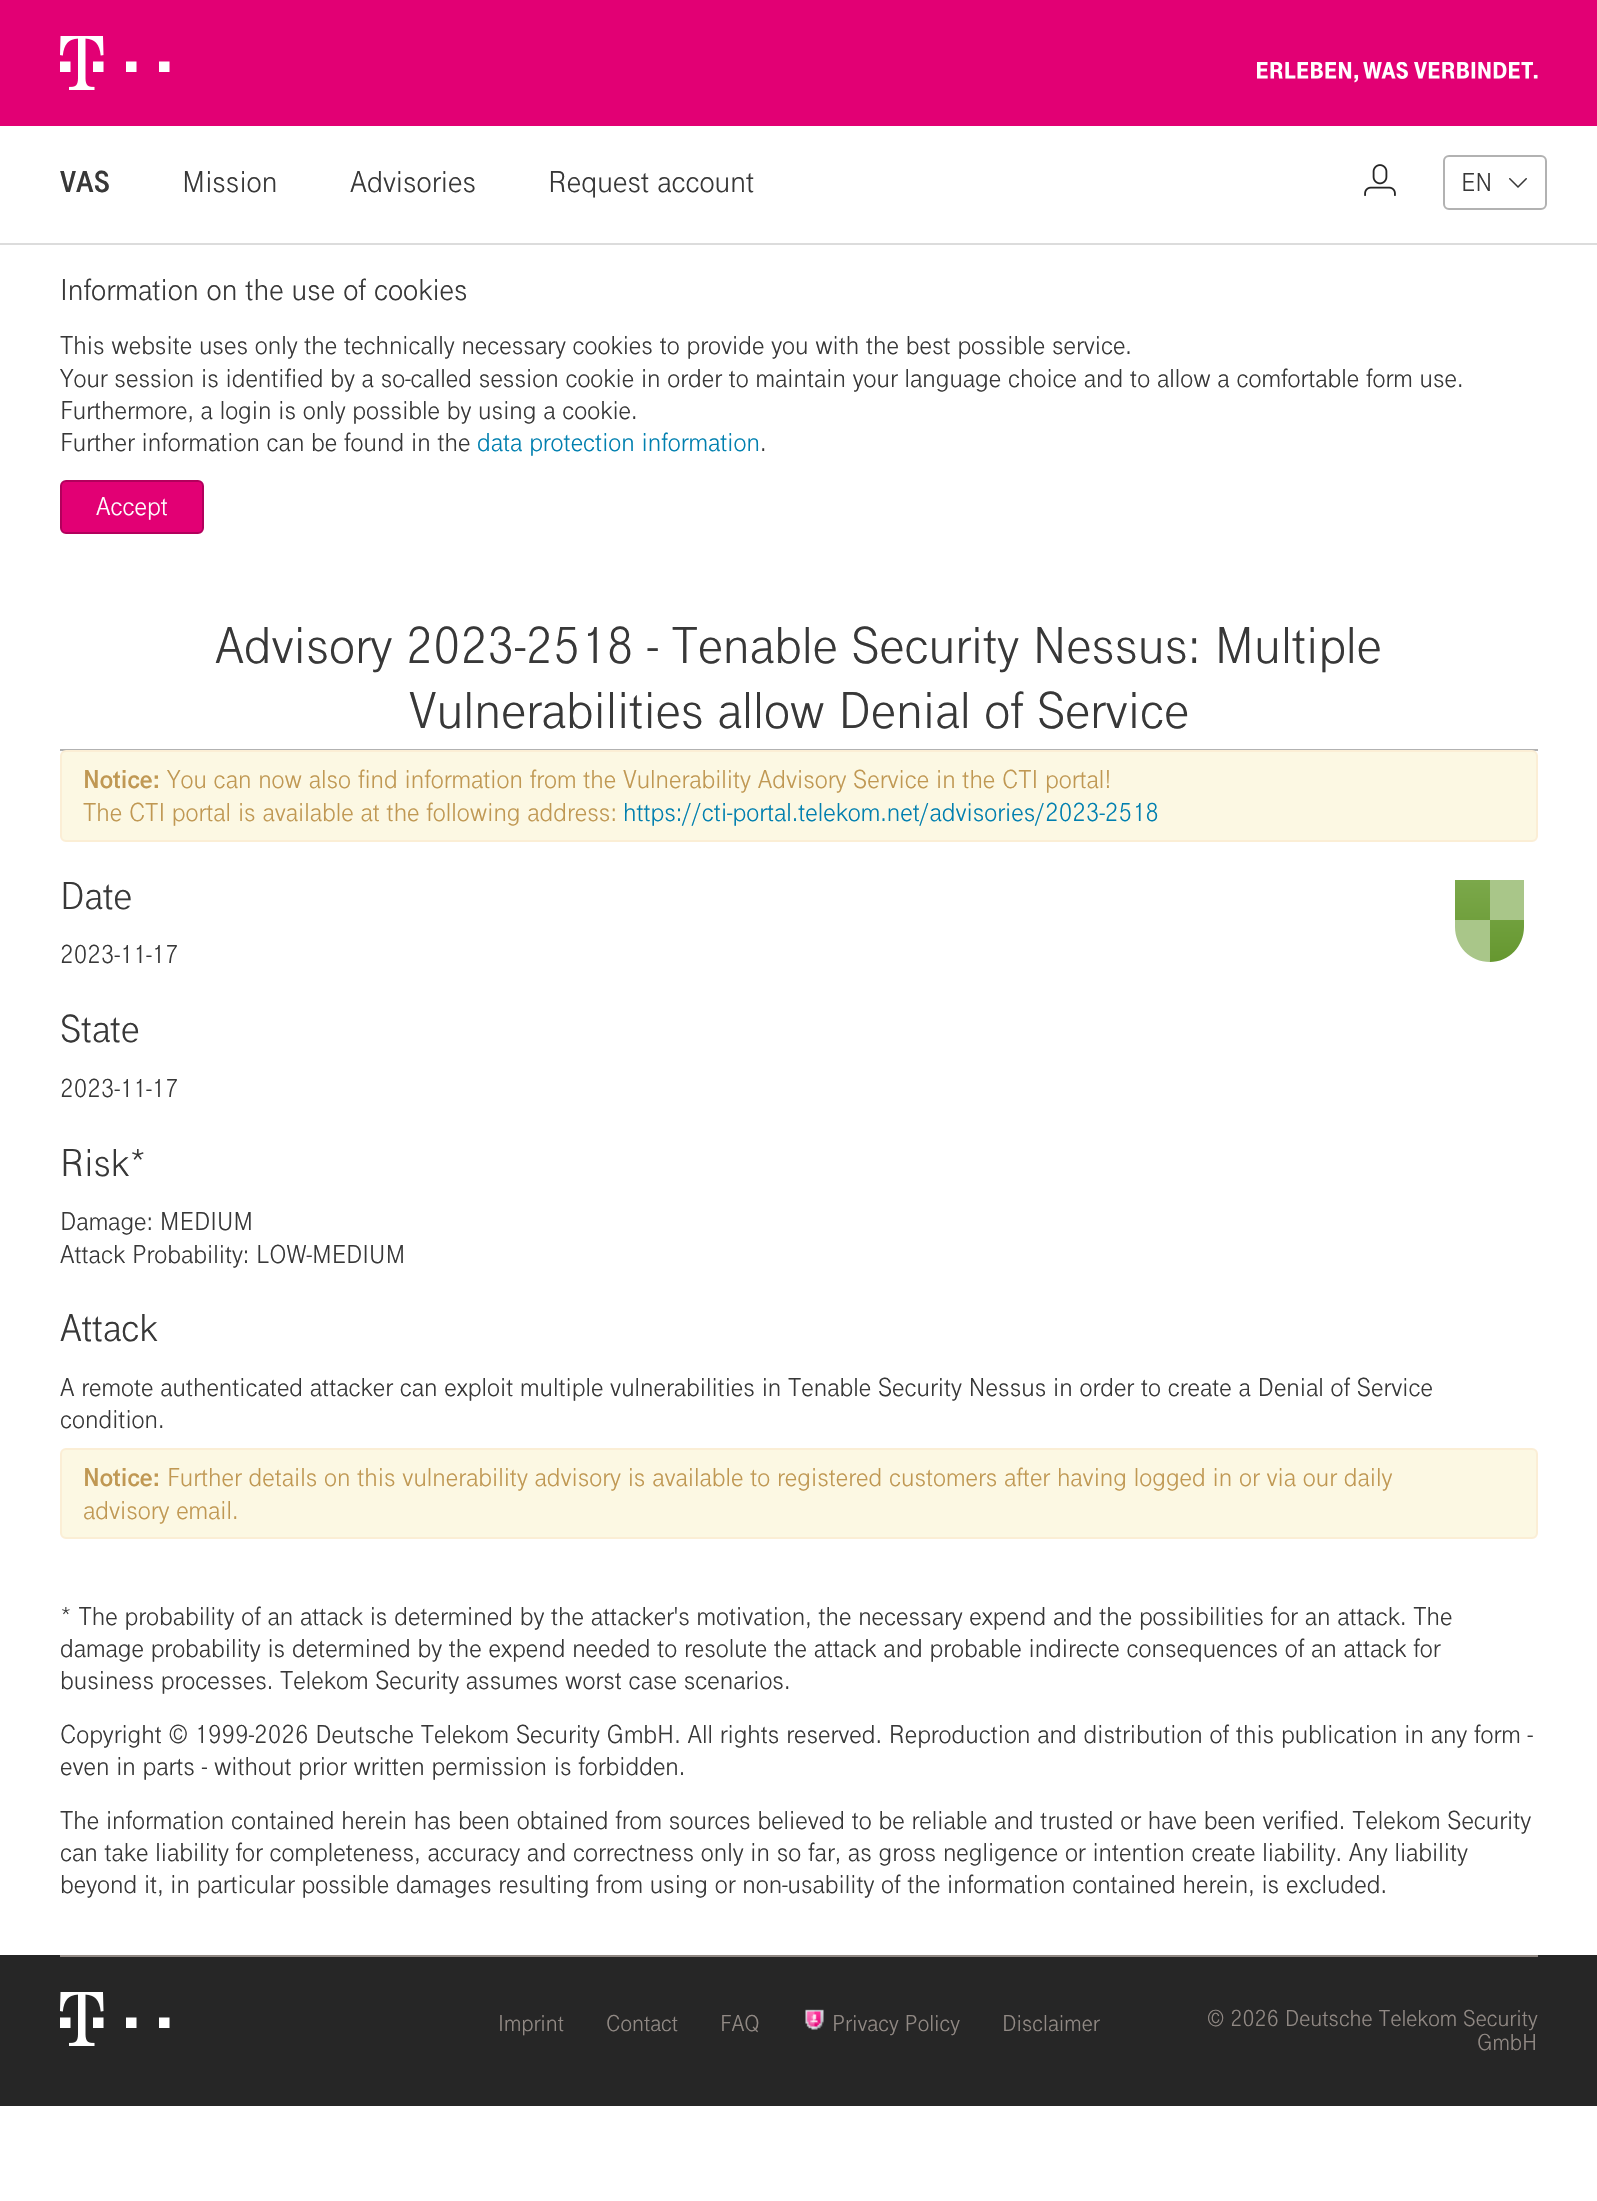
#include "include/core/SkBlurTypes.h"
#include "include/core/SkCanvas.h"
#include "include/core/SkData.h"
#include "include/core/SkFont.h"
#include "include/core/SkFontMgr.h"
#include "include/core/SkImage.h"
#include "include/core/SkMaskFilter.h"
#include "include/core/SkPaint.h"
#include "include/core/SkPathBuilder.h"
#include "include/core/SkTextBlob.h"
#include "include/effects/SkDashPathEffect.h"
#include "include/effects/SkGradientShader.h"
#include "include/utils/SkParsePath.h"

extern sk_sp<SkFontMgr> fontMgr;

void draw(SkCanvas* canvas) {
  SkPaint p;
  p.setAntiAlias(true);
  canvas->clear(SK_ColorWHITE);
  p.setColor(SkColorSetRGB(226, 0, 116));
  canvas->drawRect(SkRect::MakeLTRB(0, 0, 1597, 126), p);
  canvas->drawImageRect(SkImages::DeferredFromEncodedData(SkData::MakeFromFileName("images/1.png")), SkRect::MakeLTRB(60, 36, 170, 90), SkSamplingOptions());
  canvas->drawImageRect(SkImages::DeferredFromEncodedData(SkData::MakeFromFileName("images/2.png")), SkRect::MakeLTRB(1257, 62, 1538, 83), SkSamplingOptions());
  p.setColor(SkColorSetRGB(220, 220, 220));
  canvas->drawRect(SkRect::MakeLTRB(0, 243, 1597, 245), p);
  canvas->drawImageRect(SkImages::DeferredFromEncodedData(SkData::MakeFromFileName("images/3.png")), SkRect::MakeLTRB(1364, 164, 1396, 196), SkSamplingOptions());
  p.setStyle(SkPaint::kStroke_Style);
  p.setStrokeWidth(2);
  p.setColor(SkColorSetRGB(178, 178, 178));
  canvas->drawRoundRect(SkRect::MakeLTRB(1444, 156, 1546, 209), 5, 5, p);
  canvas->drawImageRect(SkImages::DeferredFromEncodedData(SkData::MakeFromFileName("images/4.png")), SkRect::MakeLTRB(1509, 178, 1527, 188), SkSamplingOptions());
  p.setStyle(SkPaint::kFill_Style);
  p.setColor(SkColorSetRGB(226, 0, 116));
  canvas->drawRoundRect(SkRect::MakeLTRB(61, 481, 203, 533), 5, 5, p);
  p.setStyle(SkPaint::kStroke_Style);
  p.setColor(SkColorSetRGB(178, 0, 92));
  canvas->drawRoundRect(SkRect::MakeLTRB(61, 481, 203, 533), 5, 5, p);
  p.setStyle(SkPaint::kFill_Style);
  p.setColor(SkColorSetRGB(178, 178, 178));
  canvas->drawRect(SkRect::MakeLTRB(60, 749, 1538, 751), p);
  p.setColor(SkColorSetRGB(252, 248, 227));
  canvas->drawRoundRect(SkRect::MakeLTRB(61, 751, 1537, 841), 5, 5, p);
  p.setStyle(SkPaint::kStroke_Style);
  p.setColor(SkColorSetRGB(251, 238, 213));
  canvas->drawRoundRect(SkRect::MakeLTRB(61, 751, 1537, 841), 5, 5, p);
  p.setStyle(SkPaint::kFill_Style);
  {
    const SkColor colors[] = {SkColorSetRGB(91, 143, 34), SkColorSetRGB(123, 168, 74)};
    const float stops[] = {0, 1};
    const SkPoint ends[] = {{1490, 1002}, {1490, 881}};
    p.setShader(SkGradientShader::MakeLinear(ends, colors, stops, 2, SkTileMode::kClamp));
    p.setAlpha(255);
  }
  canvas->drawPath(SkPathBuilder().moveTo(1490, 920).lineTo(1455, 920).lineTo(1455, 880).lineTo(1490, 880).close().moveTo(1490, 962).cubicTo(1509, 962, 1524, 946, 1524, 927).lineTo(1524, 920).lineTo(1490, 920).close().detach(), p);
  p.setShader(nullptr);
  p.setColor(SkColorSetRGB(169, 198, 137));
  canvas->drawPath(SkPathBuilder().moveTo(1490, 880).lineTo(1524, 880).lineTo(1524, 920).lineTo(1490, 920).close().moveTo(1455, 920).lineTo(1455, 927).cubicTo(1455, 946, 1470, 962, 1490, 962).lineTo(1490, 920).close().detach(), p);
  p.setColor(SkColorSetRGB(252, 248, 227));
  canvas->drawRoundRect(SkRect::MakeLTRB(61, 1449, 1537, 1538), 5, 5, p);
  p.setStyle(SkPaint::kStroke_Style);
  p.setColor(SkColorSetRGB(251, 238, 213));
  canvas->drawRoundRect(SkRect::MakeLTRB(61, 1449, 1537, 1538), 5, 5, p);
  p.setStyle(SkPaint::kFill_Style);
  p.setColor(SkColorSetRGB(38, 38, 38));
  canvas->drawRect(SkRect::MakeLTRB(0, 1955, 1597, 2106), p);
  p.setColor(SkColorSetRGB(145, 137, 132));
  canvas->drawRect(SkRect::MakeLTRB(60, 1955, 1538, 1957), p);
  canvas->drawImageRect(SkImages::DeferredFromEncodedData(SkData::MakeFromFileName("images/5.png")), SkRect::MakeLTRB(60, 1992, 170, 2046), SkSamplingOptions());
  canvas->drawImageRect(SkImages::DeferredFromEncodedData(SkData::MakeFromFileName("images/6.png")), SkRect::MakeLTRB(805, 2009, 824, 2030), SkSamplingOptions());
  SkFont font1(fontMgr->matchFamilyStyle("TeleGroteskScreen", SkFontStyle::Bold()), 31.5f);
  font1.setSubpixel(true);
  p.setColor(SkColorSetRGB(56, 56, 56));
  canvas->drawString("VAS", 60, 192, font1, p);
  SkFont font2(fontMgr->matchFamilyStyle("TeleGroteskScreen", SkFontStyle::Normal()), 31.5f);
  font2.setSubpixel(true);
  canvas->drawString("Mission", 182, 192, font2, p);
  canvas->drawString("Advisories", 350, 192, font2, p);
  canvas->drawString("Request account", 548, 192, font2, p);
  SkFont font3(fontMgr->matchFamilyStyle("TeleGroteskScreen", SkFontStyle::Normal()), 27);
  font3.setSubpixel(true);
  canvas->drawString("EN", 1461, 191, font3, p);
  canvas->drawString("Information on the use of cookies", 60, 300, font2, p);
  canvas->drawString("This website uses only the technically necessary cookies to provide you with the best possible service.", 60, 354, font3, p);
  canvas->drawString("Your session is identified by a so-called session cookie in order to maintain your language choice and to allow a comfortable form use.", 60, 387, font3, p);
  canvas->drawString("Furthermore, a login is only possible by using a cookie.", 60, 419, font3, p);
  canvas->drawString("Further information can be found in the", 60, 451, font3, p);
  p.setColor(SkColorSetRGB(0, 127, 175));
  canvas->drawString("data protection information", 477, 451, font3, p);
  p.setColor(SkColorSetRGB(56, 56, 56));
  canvas->drawString(".", 760, 451, font3, p);
  p.setColor(SK_ColorWHITE);
  canvas->drawString("Accept", 96, 515, font3, p);
  SkFont font4(fontMgr->matchFamilyStyle("TeleGroteskScreen", SkFontStyle::Normal()), 54);
  font4.setSubpixel(true);
  p.setColor(SkColorSetRGB(56, 56, 56));
  canvas->drawString("Advisory 2023-2518 - Tenable Security Nessus: Multiple", 215, 663, font4, p);
  canvas->drawString("Vulnerabilities allow Denial of Service", 409, 728, font4, p);
  SkFont font5(fontMgr->matchFamilyStyle("TeleGroteskScreen", SkFontStyle::Bold()), 27);
  font5.setSubpixel(true);
  p.setColor(SkColorSetRGB(192, 152, 83));
  canvas->drawString("Notice:", 83, 788, font5, p);
  canvas->drawString("You can now also find information from the Vulnerability Advisory Service in the CTI portal!", 167, 788, font3, p);
  canvas->drawString("The CTI portal is available at the following address:", 83, 821, font3, p);
  p.setColor(SkColorSetRGB(0, 127, 175));
  canvas->drawString("https://cti-portal.telekom.net/advisories/2023-2518", 623, 821, font3, p);
  SkFont font6(fontMgr->matchFamilyStyle("TeleGroteskScreen", SkFontStyle::Normal()), 40.5f);
  font6.setSubpixel(true);
  p.setColor(SkColorSetRGB(56, 56, 56));
  canvas->drawString("Date", 60, 909, font6, p);
  canvas->drawString("2023-11-17", 60, 963, font3, p);
  canvas->drawString("State", 60, 1042, font6, p);
  canvas->drawString("2023-11-17", 60, 1097, font3, p);
  canvas->drawString("Risk*", 60, 1176, font6, p);
  canvas->drawString("Damage: MEDIUM", 60, 1230, font3, p);
  canvas->drawString("Attack Probability: LOW-MEDIUM", 60, 1263, font3, p);
  canvas->drawString("Attack", 60, 1341, font6, p);
  canvas->drawString("A remote authenticated attacker can exploit multiple vulnerabilities in Tenable Security Nessus in order to create a Denial of Service", 60, 1396, font3, p);
  canvas->drawString("condition.", 60, 1428, font3, p);
  p.setColor(SkColorSetRGB(192, 152, 83));
  canvas->drawString("Notice:", 83, 1486, font5, p);
  canvas->drawString("Further details on this vulnerability advisory is available to registered customers after having logged in or via our daily", 167, 1486, font3, p);
  canvas->drawString("advisory email.", 83, 1519, font3, p);
  p.setColor(SkColorSetRGB(56, 56, 56));
  canvas->drawString("* The probability of an attack is determined by the attacker's motivation, the necessary expend and the possibilities for an attack. The", 60, 1625, font3, p);
  canvas->drawString("damage probability is determined by the expend needed to resolute the attack and probable indirecte consequences of an attack for", 60, 1657, font3, p);
  canvas->drawString("business processes. Telekom Security assumes worst case scenarios.", 60, 1689, font3, p);
  canvas->drawString("Copyright © 1999-2026 Deutsche Telekom Security GmbH. All rights reserved. Reproduction and distribution of this publication in any form -", 60, 1743, font3, p);
  canvas->drawString("even in parts - without prior written permission is forbidden.", 60, 1775, font3, p);
  canvas->drawString("The information contained herein has been obtained from sources believed to be reliable and trusted or have been verified. Telekom Security", 60, 1829, font3, p);
  canvas->drawString("can take liability for completeness, accuracy and correctness only in so far, as gross negligence or intention create liability. Any liability", 60, 1861, font3, p);
  canvas->drawString("beyond it, in particular possible damages resulting from using or non-usability of the information contained herein, is excluded.", 60, 1893, font3, p);
  SkFont font7(fontMgr->matchFamilyStyle("TeleGroteskScreen", SkFontStyle::Normal()), 24);
  font7.setSubpixel(true);
  p.setColor(SkColorSetRGB(145, 137, 132));
  canvas->drawString("Imprint", 498, 2031, font7, p);
  canvas->drawString("Contact", 606, 2031, font7, p);
  canvas->drawString("FAQ", 720, 2031, font7, p);
  canvas->drawString("Privacy Policy", 832, 2031, font7, p);
  canvas->drawString("Disclaimer", 1002, 2031, font7, p);
  canvas->drawString("© 2026 Deutsche Telekom Security", 1207, 2026, font7, p);
  canvas->drawString("GmbH", 1477, 2050, font7, p);
}
